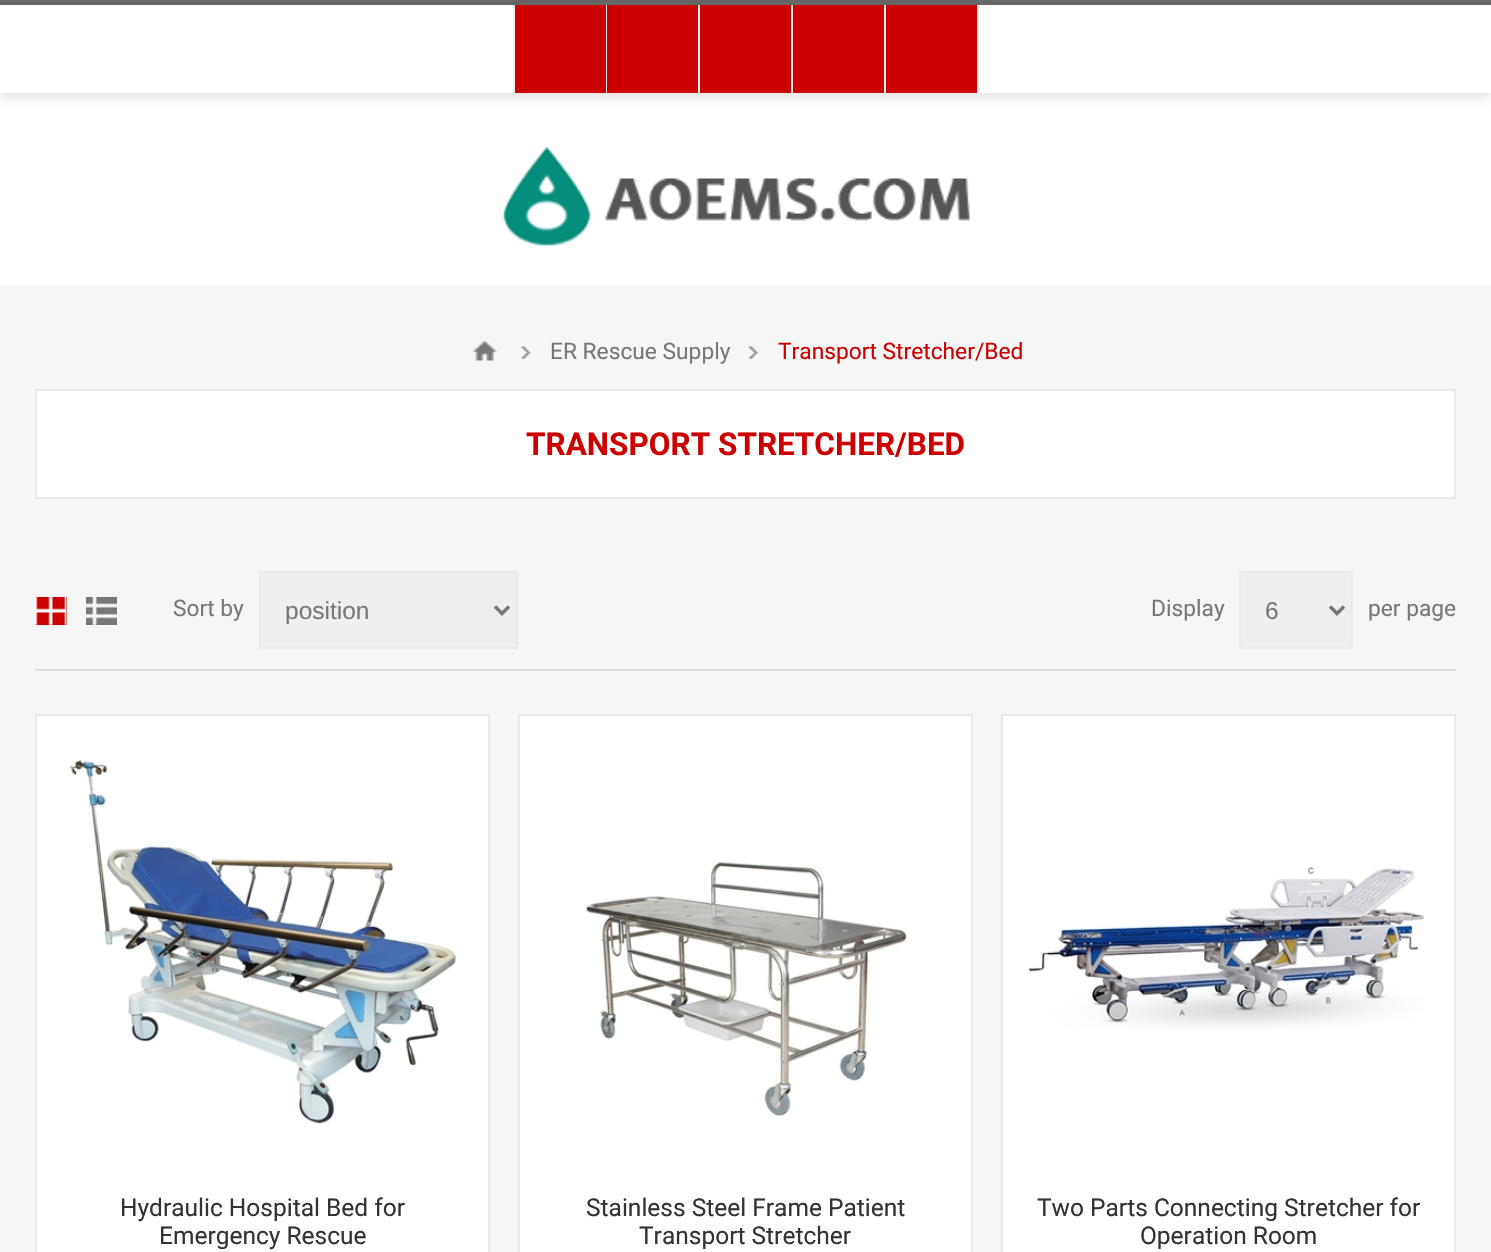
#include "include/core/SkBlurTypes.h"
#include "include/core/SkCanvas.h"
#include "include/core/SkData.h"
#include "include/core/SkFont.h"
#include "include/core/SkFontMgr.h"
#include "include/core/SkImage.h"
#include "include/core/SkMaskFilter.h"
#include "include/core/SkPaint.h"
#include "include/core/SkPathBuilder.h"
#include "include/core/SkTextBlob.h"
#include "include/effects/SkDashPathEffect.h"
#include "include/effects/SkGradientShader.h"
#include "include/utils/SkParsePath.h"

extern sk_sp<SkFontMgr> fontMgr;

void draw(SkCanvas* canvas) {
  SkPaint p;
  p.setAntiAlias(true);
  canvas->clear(SkColorSetRGB(246, 246, 246));
  p.setColor(SK_ColorWHITE);
  canvas->drawRect(SkRect::MakeLTRB(0, 93, 1491, 285), p);
  p.setColor(SkColorSetARGB(26, 0, 0, 0));
  p.setMaskFilter(SkMaskFilter::MakeBlur(kNormal_SkBlurStyle, 4.5f));
  canvas->drawRect(SkRect::MakeLTRB(0, 5, 1491, 98), p);
  p.setMaskFilter(nullptr);
  p.setColor(SK_ColorWHITE);
  canvas->drawRect(SkRect::MakeLTRB(0, 5, 1491, 93), p);
  p.setColor(SkColorSetRGB(102, 102, 102));
  canvas->drawRect(SkRect::MakeLTRB(0, 0, 1491, 5), p);
  p.setColor(SkColorSetRGB(204, 0, 0));
  canvas->drawRect(SkRect::MakeLTRB(515, 5, 606, 93), p);
  p.setColor(SkColorSetRGB(238, 238, 238));
  canvas->drawRect(SkRect::MakeLTRB(606, 5, 607, 93), p);
  canvas->drawRect(SkRect::MakeLTRB(513, 5, 515, 93), p);
  p.setColor(SkColorSetRGB(204, 0, 0));
  canvas->drawRect(SkRect::MakeLTRB(607, 5, 698, 93), p);
  p.setColor(SkColorSetRGB(238, 238, 238));
  canvas->drawRect(SkRect::MakeLTRB(698, 5, 700, 93), p);
  p.setColor(SkColorSetRGB(204, 0, 0));
  canvas->drawRect(SkRect::MakeLTRB(700, 5, 791, 93), p);
  p.setColor(SkColorSetRGB(238, 238, 238));
  canvas->drawRect(SkRect::MakeLTRB(791, 5, 793, 93), p);
  p.setColor(SkColorSetRGB(204, 0, 0));
  canvas->drawRect(SkRect::MakeLTRB(793, 5, 884, 93), p);
  p.setColor(SkColorSetRGB(238, 238, 238));
  canvas->drawRect(SkRect::MakeLTRB(884, 5, 886, 93), p);
  p.setColor(SkColorSetRGB(204, 0, 0));
  canvas->drawRect(SkRect::MakeLTRB(886, 5, 977, 93), p);
  p.setColor(SkColorSetRGB(238, 238, 238));
  canvas->drawRect(SkRect::MakeLTRB(977, 5, 979, 93), p);
  canvas->drawImageRect(SkImages::DeferredFromEncodedData(SkData::MakeFromFileName("images/1.png")), SkRect::MakeLTRB(503, 146, 970, 246), SkSamplingOptions());
  canvas->drawImageRect(SkImages::DeferredFromEncodedData(SkData::MakeFromFileName("images/2.png")), SkRect::MakeLTRB(472, 341, 497, 361), SkSamplingOptions());
  canvas->drawImageRect(SkImages::DeferredFromEncodedData(SkData::MakeFromFileName("images/3.png")), SkRect::MakeLTRB(521, 346, 531, 359), SkSamplingOptions());
  canvas->drawImageRect(SkImages::DeferredFromEncodedData(SkData::MakeFromFileName("images/4.png")), SkRect::MakeLTRB(749, 346, 758, 359), SkSamplingOptions());
  p.setColor(SK_ColorWHITE);
  canvas->drawRect(SkRect::MakeLTRB(36, 390, 1455, 498), p);
  p.setStyle(SkPaint::kStroke_Style);
  p.setStrokeWidth(2);
  p.setColor(SkColorSetRGB(233, 233, 233));
  canvas->drawRect(SkRect::MakeLTRB(36, 390, 1455, 498), p);
  p.setStyle(SkPaint::kFill_Style);
  p.setColor(SkColorSetRGB(221, 221, 221));
  canvas->drawRect(SkRect::MakeLTRB(35, 669, 1456, 671), p);
  p.setColor(SkColorSetRGB(204, 0, 0));
  canvas->drawRect(SkRect::MakeLTRB(35, 597, 67, 625), p);
  canvas->drawImageRect(SkImages::DeferredFromEncodedData(SkData::MakeFromFileName("images/5.png")), SkRect::MakeLTRB(35, 597, 67, 625), SkSamplingOptions());
  p.setColor(SkColorSetRGB(119, 119, 119));
  canvas->drawRect(SkRect::MakeLTRB(86, 597, 117, 625), p);
  canvas->drawImageRect(SkImages::DeferredFromEncodedData(SkData::MakeFromFileName("images/6.png")), SkRect::MakeLTRB(86, 597, 117, 625), SkSamplingOptions());
  p.setColor(SkColorSetRGB(239, 239, 239));
  canvas->drawRect(SkRect::MakeLTRB(260, 572, 517, 648), p);
  p.setStyle(SkPaint::kStroke_Style);
  p.setColor(SkColorSetRGB(233, 233, 233));
  canvas->drawRect(SkRect::MakeLTRB(260, 572, 517, 648), p);
  p.setStrokeWidth(3.5f);
  p.setColor(SkColorSetRGB(119, 119, 119));
  canvas->drawPath(SkPathBuilder().moveTo(495, 606.5f).lineTo(502, 613.5f).lineTo(509, 606.5f).detach(), p);
  p.setStyle(SkPaint::kFill_Style);
  p.setColor(SkColorSetRGB(239, 239, 239));
  canvas->drawRect(SkRect::MakeLTRB(1240, 572, 1352, 648), p);
  p.setStyle(SkPaint::kStroke_Style);
  p.setStrokeWidth(2);
  p.setColor(SkColorSetRGB(233, 233, 233));
  canvas->drawRect(SkRect::MakeLTRB(1240, 572, 1352, 648), p);
  p.setStrokeWidth(3.5f);
  p.setColor(SkColorSetRGB(119, 119, 119));
  canvas->drawPath(SkPathBuilder().moveTo(1330, 606.5f).lineTo(1337, 613.5f).lineTo(1344, 606.5f).detach(), p);
  p.setStyle(SkPaint::kFill_Style);
  p.setColor(SK_ColorWHITE);
  canvas->drawRect(SkRect::MakeLTRB(36, 715, 489, 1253), p);
  p.setStyle(SkPaint::kStroke_Style);
  p.setStrokeWidth(2);
  p.setColor(SkColorSetRGB(233, 233, 233));
  canvas->drawRect(SkRect::MakeLTRB(36, 715, 489, 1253), p);
  canvas->drawImageRect(SkImages::DeferredFromEncodedData(SkData::MakeFromFileName("images/7.png")), SkRect::MakeLTRB(69, 759, 456, 1124), SkSamplingOptions());
  p.setStyle(SkPaint::kFill_Style);
  p.setColor(SK_ColorWHITE);
  canvas->drawRect(SkRect::MakeLTRB(519, 715, 972, 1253), p);
  p.setStyle(SkPaint::kStroke_Style);
  p.setColor(SkColorSetRGB(233, 233, 233));
  canvas->drawRect(SkRect::MakeLTRB(519, 715, 972, 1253), p);
  canvas->drawImageRect(SkImages::DeferredFromEncodedData(SkData::MakeFromFileName("images/8.png")), SkRect::MakeLTRB(586, 861, 907, 1117), SkSamplingOptions());
  p.setStyle(SkPaint::kFill_Style);
  p.setColor(SK_ColorWHITE);
  canvas->drawRect(SkRect::MakeLTRB(1002, 715, 1455, 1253), p);
  p.setStyle(SkPaint::kStroke_Style);
  p.setColor(SkColorSetRGB(233, 233, 233));
  canvas->drawRect(SkRect::MakeLTRB(1002, 715, 1455, 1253), p);
  canvas->drawImageRect(SkImages::DeferredFromEncodedData(SkData::MakeFromFileName("images/9.png")), SkRect::MakeLTRB(1028, 866, 1425, 1030), SkSamplingOptions());
  SkFont font1(fontMgr->matchFamilyStyle("Roboto", SkFontStyle::Normal()), 22.75f);
  font1.setSubpixel(true);
  p.setStyle(SkPaint::kFill_Style);
  p.setColor(SkColorSetRGB(119, 119, 119));
  canvas->drawString("ER Rescue Supply", 550, 359, font1, p);
  p.setColor(SkColorSetRGB(204, 0, 0));
  canvas->drawString("Transport Stretcher/Bed", 778, 359, font1, p);
  SkFont font2(fontMgr->matchFamilyStyle("Roboto", SkFontStyle::Bold()), 31.5f);
  font2.setSubpixel(true);
  canvas->drawString("TRANSPORT STRETCHER/BED", 526, 455, font2, p);
  p.setColor(SkColorSetRGB(119, 119, 119));
  canvas->drawString("Sort by", 173, 616, font1, p);
  SkFont font3(fontMgr->matchFamilyStyle("Liberation Sans", SkFontStyle::Normal()), 24.5f);
  font3.setSubpixel(true);
  canvas->drawString("position", 285, 619, font3, p);
  canvas->drawString("Display", 1151, 616, font1, p);
  canvas->drawString("6", 1265, 619, font3, p);
  canvas->drawString("per page", 1368, 616, font1, p);
  SkFont font4(fontMgr->matchFamilyStyle("Roboto", SkFontStyle::Normal()), 24.5f);
  font4.setSubpixel(true);
  p.setColor(SkColorSetRGB(51, 51, 51));
  canvas->drawString("Hydraulic Hospital Bed for", 120, 1216, font4, p);
  canvas->drawString("Emergency Rescue", 159, 1244, font4, p);
  canvas->drawString("Stainless Steel Frame Patient", 586, 1216, font4, p);
  canvas->drawString("Transport Stretcher", 639, 1244, font4, p);
  canvas->drawString("Two Parts Connecting Stretcher for", 1037, 1216, font4, p);
  canvas->drawString("Operation Room", 1140, 1244, font4, p);
}
